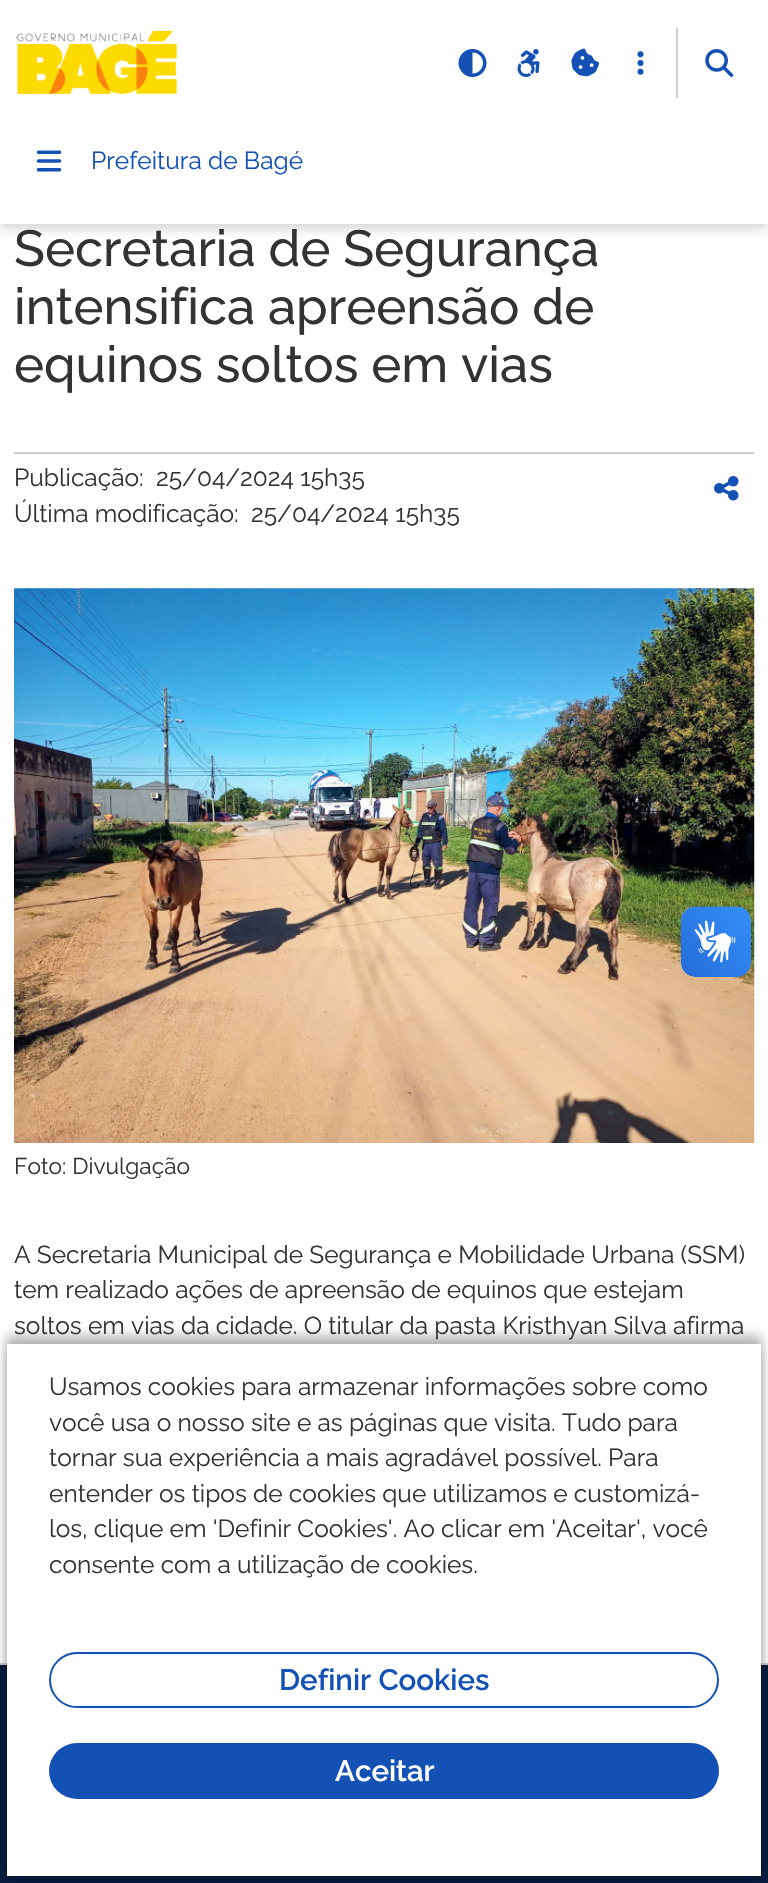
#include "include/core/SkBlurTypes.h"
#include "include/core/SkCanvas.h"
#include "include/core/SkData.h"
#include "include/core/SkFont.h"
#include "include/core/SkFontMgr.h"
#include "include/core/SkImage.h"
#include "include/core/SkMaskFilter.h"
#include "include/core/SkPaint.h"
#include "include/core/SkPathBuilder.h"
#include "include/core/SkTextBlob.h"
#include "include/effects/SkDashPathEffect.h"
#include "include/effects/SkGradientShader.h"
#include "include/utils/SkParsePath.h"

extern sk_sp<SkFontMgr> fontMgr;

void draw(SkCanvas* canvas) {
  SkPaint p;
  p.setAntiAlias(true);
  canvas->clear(SK_ColorWHITE);
  p.setColor(SkColorSetARGB(41, 0, 0, 0));
  p.setMaskFilter(SkMaskFilter::MakeBlur(kNormal_SkBlurStyle, 5));
  canvas->drawRect(SkRect::MakeLTRB(0, 5, 768, 229), p);
  p.setMaskFilter(nullptr);
  p.setColor(SK_ColorWHITE);
  canvas->drawRect(SkRect::MakeLTRB(0, 0, 768, 224), p);
  canvas->drawImageRect(SkImages::DeferredFromEncodedData(SkData::MakeFromFileName("images/1.png")), SkRect::MakeLTRB(16, 30, 177, 95), SkSamplingOptions());
  canvas->drawImageRect(SkImages::DeferredFromEncodedData(SkData::MakeFromFileName("images/2.png")), SkRect::MakeLTRB(458, 49, 487, 77), SkSamplingOptions());
  canvas->drawImageRect(SkImages::DeferredFromEncodedData(SkData::MakeFromFileName("images/3.png")), SkRect::MakeLTRB(517, 49, 540, 77), SkSamplingOptions());
  canvas->drawImageRect(SkImages::DeferredFromEncodedData(SkData::MakeFromFileName("images/4.png")), SkRect::MakeLTRB(571, 48, 599, 77), SkSamplingOptions());
  canvas->drawImageRect(SkImages::DeferredFromEncodedData(SkData::MakeFromFileName("images/5.png")), SkRect::MakeLTRB(637, 51, 644, 75), SkSamplingOptions());
  p.setColor(SkColorSetRGB(204, 204, 204));
  canvas->drawRect(SkRect::MakeLTRB(676, 28, 678, 98), p);
  canvas->drawImageRect(SkImages::DeferredFromEncodedData(SkData::MakeFromFileName("images/6.png")), SkRect::MakeLTRB(705, 49, 734, 77), SkSamplingOptions());
  canvas->drawImageRect(SkImages::DeferredFromEncodedData(SkData::MakeFromFileName("images/7.png")), SkRect::MakeLTRB(36, 150, 62, 172), SkSamplingOptions());
  canvas->drawRect(SkRect::MakeLTRB(14, 452, 754, 454), p);
  canvas->drawImageRect(SkImages::DeferredFromEncodedData(SkData::MakeFromFileName("images/8.png")), SkRect::MakeLTRB(714, 476, 739, 501), SkSamplingOptions());
  canvas->drawImageRect(SkImages::DeferredFromEncodedData(SkData::MakeFromFileName("images/11.png")), SkRect::MakeLTRB(14, 588, 755, 1143), SkSamplingOptions());
  canvas->drawImageRect(SkImages::DeferredFromEncodedData(SkData::MakeFromFileName("images/9.png")), SkRect::MakeLTRB(680, 906, 751, 977), SkSamplingOptions());
  canvas->drawImageRect(SkImages::DeferredFromEncodedData(SkData::MakeFromFileName("images/10.png")), SkRect::MakeLTRB(681, 907, 751, 977), SkSamplingOptions());
  p.setColor(SkColorSetRGB(7, 29, 65));
  canvas->drawRect(SkRect::MakeLTRB(0, 1665, 768, 1883), p);
  p.setColor(SkColorSetRGB(204, 204, 204));
  canvas->drawRect(SkRect::MakeLTRB(0, 1663, 768, 1665), p);
  p.setColor(SkColorSetARGB(41, 0, 0, 0));
  p.setMaskFilter(SkMaskFilter::MakeBlur(kNormal_SkBlurStyle, 5));
  canvas->drawRect(SkRect::MakeLTRB(7, 1334, 761, 1866), p);
  p.setMaskFilter(nullptr);
  p.setMaskFilter(SkMaskFilter::MakeBlur(kNormal_SkBlurStyle, 5));
  canvas->drawRect(SkRect::MakeLTRB(7, 1349, 761, 1881), p);
  p.setMaskFilter(nullptr);
  p.setColor(SK_ColorWHITE);
  canvas->drawRect(SkRect::MakeLTRB(7, 1344, 761, 1876), p);
  canvas->save();
  canvas->clipPath(SkPathBuilder(SkPathFillType::kEvenOdd).moveTo(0, 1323).lineTo(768, 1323).lineTo(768, 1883).lineTo(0, 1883).close().moveTo(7, 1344).lineTo(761, 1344).lineTo(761, 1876).lineTo(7, 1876).close().detach(), true);
  p.setColor(SkColorSetARGB(41, 0, 0, 0));
  p.setMaskFilter(SkMaskFilter::MakeBlur(kNormal_SkBlurStyle, 5));
  canvas->drawRect(SkRect::MakeLTRB(7, 1339, 761, 1871), p);
  p.setMaskFilter(nullptr);
  canvas->restore();
  p.setStyle(SkPaint::kStroke_Style);
  p.setStrokeWidth(2);
  p.setColor(SkColorSetRGB(19, 81, 180));
  canvas->drawRoundRect(SkRect::MakeLTRB(50, 1653, 718, 1707), 27, 27, p);
  p.setStyle(SkPaint::kFill_Style);
  canvas->drawRoundRect(SkRect::MakeLTRB(49, 1743, 719, 1799), 28, 28, p);
  SkFont font1(fontMgr->matchFamilyStyle("Raleway", SkFontStyle::Normal()), 24.5f);
  font1.setSubpixel(true);
  canvas->drawString("Prefeitura de Bagé", 91, 169, font1, p);
  SkFont font2(fontMgr->matchFamilyStyle("Raleway", SkFontStyle(500, SkFontStyle::kNormal_Width, SkFontStyle::kUpright_Slant)), 50.75f);
  font2.setSubpixel(true);
  p.setColor(SkColorSetRGB(51, 51, 51));
  canvas->drawString("Secretaria de Segurança", 14, 266, font2, p);
  canvas->drawString("intensifica apreensão de", 14, 324, font2, p);
  canvas->drawString("equinos soltos em vias", 14, 382, font2, p);
  canvas->drawString("Publicação:", 14, 486, font1, p);
  canvas->drawString("25/04/2024 15h35", 156, 486, font1, p);
  canvas->drawString("Última modificação:", 14, 522, font1, p);
  canvas->drawString("25/04/2024 15h35", 251, 522, font1, p);
  SkFont font3(fontMgr->matchFamilyStyle("Raleway", SkFontStyle::Normal()), 22.75f);
  font3.setSubpixel(true);
  canvas->drawString("Foto: Divulgação", 14, 1174, font3, p);
  canvas->drawString("A Secretaria Municipal de Segurança e Mobilidade Urbana (SSM)", 14, 1263, font1, p);
  canvas->drawString("tem realizado ações de apreensão de equinos que estejam", 14, 1298, font1, p);
  canvas->drawString("soltos em vias da cidade. O titular da pasta Kristhyan Silva afirma", 14, 1334, font1, p);
  canvas->drawString("Usamos cookies para armazenar informações sobre como", 49, 1395, font1, p);
  canvas->drawString("você usa o nosso site e as páginas que visita. Tudo para", 49, 1431, font1, p);
  canvas->drawString("tornar sua experiência a mais agradável possível. Para", 49, 1466, font1, p);
  canvas->drawString("entender os tipos de cookies que utilizamos e customizá-", 49, 1502, font1, p);
  canvas->drawString("los, clique em 'Definir Cookies'. Ao clicar em 'Aceitar', você", 49, 1537, font1, p);
  canvas->drawString("consente com a utilização de cookies.", 49, 1573, font1, p);
  SkFont font4(fontMgr->matchFamilyStyle("Raleway", SkFontStyle(600, SkFontStyle::kNormal_Width, SkFontStyle::kUpright_Slant)), 29.5f);
  font4.setSubpixel(true);
  p.setColor(SkColorSetRGB(19, 81, 180));
  canvas->drawString("Definir Cookies", 279, 1690, font4, p);
  p.setColor(SK_ColorWHITE);
  canvas->drawString("Aceitar", 335, 1781, font4, p);
}
